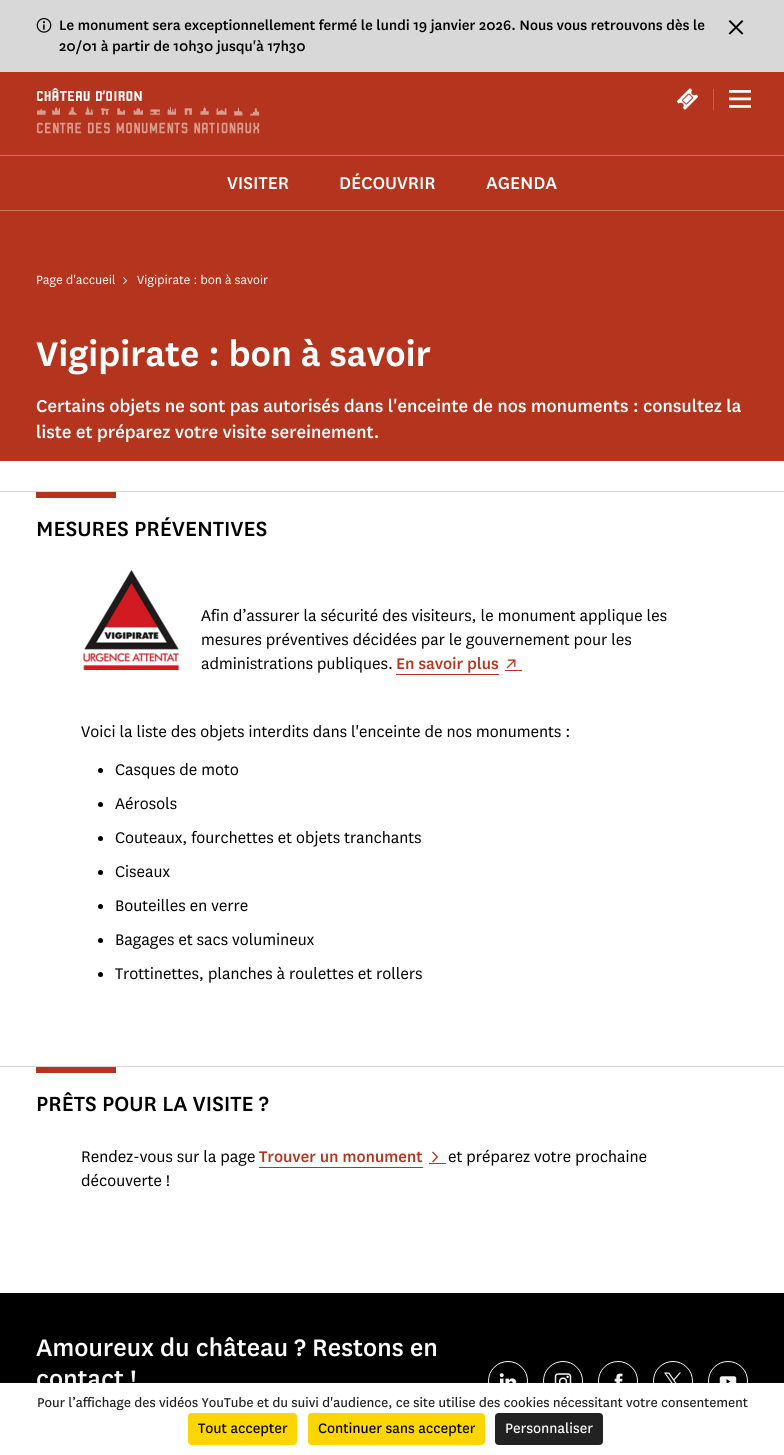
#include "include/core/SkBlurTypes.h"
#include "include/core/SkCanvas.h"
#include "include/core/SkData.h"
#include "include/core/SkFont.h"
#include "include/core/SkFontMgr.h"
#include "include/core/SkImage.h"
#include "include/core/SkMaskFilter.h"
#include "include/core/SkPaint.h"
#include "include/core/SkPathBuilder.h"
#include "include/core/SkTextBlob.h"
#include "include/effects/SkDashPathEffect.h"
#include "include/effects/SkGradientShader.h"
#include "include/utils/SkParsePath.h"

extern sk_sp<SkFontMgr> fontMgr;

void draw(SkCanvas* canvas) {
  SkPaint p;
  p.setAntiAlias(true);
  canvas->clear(SK_ColorWHITE);
  p.setColor(SkColorSetRGB(216, 216, 216));
  canvas->drawRect(SkRect::MakeLTRB(0, 0, 784, 72), p);
  canvas->drawImageRect(SkImages::DeferredFromEncodedData(SkData::MakeFromFileName("images/1.png")), SkRect::MakeLTRB(36, 18, 52, 33), SkSamplingOptions());
  canvas->drawImageRect(SkImages::DeferredFromEncodedData(SkData::MakeFromFileName("images/2.png")), SkRect::MakeLTRB(60, 19, 705, 34), SkSamplingOptions());
  canvas->drawImageRect(SkImages::DeferredFromEncodedData(SkData::MakeFromFileName("images/3.png")), SkRect::MakeLTRB(59, 40, 305, 55), SkSamplingOptions());
  canvas->drawImageRect(SkImages::DeferredFromEncodedData(SkData::MakeFromFileName("images/4.png")), SkRect::MakeLTRB(728, 20, 744, 35), SkSamplingOptions());
  p.setColor(SkColorSetRGB(181, 52, 29));
  canvas->drawRect(SkRect::MakeLTRB(0, 72, 784, 210), p);
  canvas->drawImageRect(SkImages::DeferredFromEncodedData(SkData::MakeFromFileName("images/5.png")), SkRect::MakeLTRB(37, 106, 260, 134), SkSamplingOptions());
  canvas->drawImageRect(SkImages::DeferredFromEncodedData(SkData::MakeFromFileName("images/6.png")), SkRect::MakeLTRB(676, 88, 699, 110), SkSamplingOptions());
  p.setColor(SkColorSetRGB(196, 93, 74));
  canvas->drawRect(SkRect::MakeLTRB(713, 89, 714, 110), p);
  canvas->drawImageRect(SkImages::DeferredFromEncodedData(SkData::MakeFromFileName("images/7.png")), SkRect::MakeLTRB(729, 90, 751, 108), SkSamplingOptions());
  p.setColor(SkColorSetRGB(203, 113, 97));
  canvas->drawRect(SkRect::MakeLTRB(0, 155, 784, 156), p);
  canvas->drawImageRect(SkImages::DeferredFromEncodedData(SkData::MakeFromFileName("images/8.png")), SkRect::MakeLTRB(227, 177, 289, 190), SkSamplingOptions());
  canvas->drawImageRect(SkImages::DeferredFromEncodedData(SkData::MakeFromFileName("images/9.png")), SkRect::MakeLTRB(340, 173, 435, 190), SkSamplingOptions());
  canvas->drawImageRect(SkImages::DeferredFromEncodedData(SkData::MakeFromFileName("images/10.png")), SkRect::MakeLTRB(486, 177, 557, 190), SkSamplingOptions());
  p.setColor(SkColorSetRGB(181, 52, 29));
  canvas->drawRect(SkRect::MakeLTRB(0, 211, 784, 461), p);
  p.setColor(SkColorSetRGB(203, 113, 97));
  canvas->drawRect(SkRect::MakeLTRB(0, 210, 784, 211), p);
  canvas->drawImageRect(SkImages::DeferredFromEncodedData(SkData::MakeFromFileName("images/11.png")), SkRect::MakeLTRB(37, 274, 115, 287), SkSamplingOptions());
  canvas->drawImageRect(SkImages::DeferredFromEncodedData(SkData::MakeFromFileName("images/12.png")), SkRect::MakeLTRB(123, 277, 127, 285), SkSamplingOptions());
  canvas->drawImageRect(SkImages::DeferredFromEncodedData(SkData::MakeFromFileName("images/13.png")), SkRect::MakeLTRB(137, 274, 268, 287), SkSamplingOptions());
  canvas->drawImageRect(SkImages::DeferredFromEncodedData(SkData::MakeFromFileName("images/14.png")), SkRect::MakeLTRB(36, 338, 431, 375), SkSamplingOptions());
  canvas->drawImageRect(SkImages::DeferredFromEncodedData(SkData::MakeFromFileName("images/15.png")), SkRect::MakeLTRB(36, 398, 741, 417), SkSamplingOptions());
  canvas->drawImageRect(SkImages::DeferredFromEncodedData(SkData::MakeFromFileName("images/16.png")), SkRect::MakeLTRB(37, 424, 378, 443), SkSamplingOptions());
  p.setColor(SkColorSetRGB(216, 216, 216));
  canvas->drawRect(SkRect::MakeLTRB(0, 491, 784, 492), p);
  p.setColor(SkColorSetRGB(181, 52, 29));
  canvas->drawRect(SkRect::MakeLTRB(36, 492, 116, 498), p);
  canvas->drawImageRect(SkImages::DeferredFromEncodedData(SkData::MakeFromFileName("images/17.png")), SkRect::MakeLTRB(37, 517, 267, 537), SkSamplingOptions());
  canvas->drawImageRect(SkImages::DeferredFromEncodedData(SkData::MakeFromFileName("images/18.png")), SkRect::MakeLTRB(83, 570, 179, 670), SkSamplingOptions());
  canvas->drawImageRect(SkImages::DeferredFromEncodedData(SkData::MakeFromFileName("images/19.png")), SkRect::MakeLTRB(201, 608, 667, 625), SkSamplingOptions());
  canvas->drawImageRect(SkImages::DeferredFromEncodedData(SkData::MakeFromFileName("images/20.png")), SkRect::MakeLTRB(202, 632, 632, 649), SkSamplingOptions());
  canvas->drawImageRect(SkImages::DeferredFromEncodedData(SkData::MakeFromFileName("images/21.png")), SkRect::MakeLTRB(201, 657, 392, 673), SkSamplingOptions());
  canvas->drawImageRect(SkImages::DeferredFromEncodedData(SkData::MakeFromFileName("images/22.png")), SkRect::MakeLTRB(397, 656, 499, 673), SkSamplingOptions());
  canvas->drawImageRect(SkImages::DeferredFromEncodedData(SkData::MakeFromFileName("images/23.png")), SkRect::MakeLTRB(506, 659, 516, 669), SkSamplingOptions());
  canvas->drawRect(SkRect::MakeLTRB(505, 670, 522, 671), p);
  canvas->drawRect(SkRect::MakeLTRB(396, 674, 499, 675), p);
  canvas->drawImageRect(SkImages::DeferredFromEncodedData(SkData::MakeFromFileName("images/24.png")), SkRect::MakeLTRB(81, 725, 569, 741), SkSamplingOptions());
  p.setColor(SK_ColorBLACK);
  canvas->drawCircle(100.5f, 770.5f, 2.5f, p);
  canvas->drawImageRect(SkImages::DeferredFromEncodedData(SkData::MakeFromFileName("images/25.png")), SkRect::MakeLTRB(115, 763, 238, 779), SkSamplingOptions());
  canvas->drawCircle(100.5f, 804.5f, 2.5f, p);
  canvas->drawImageRect(SkImages::DeferredFromEncodedData(SkData::MakeFromFileName("images/26.png")), SkRect::MakeLTRB(115, 796, 177, 810), SkSamplingOptions());
  canvas->drawCircle(100.5f, 838.5f, 2.5f, p);
  canvas->drawImageRect(SkImages::DeferredFromEncodedData(SkData::MakeFromFileName("images/27.png")), SkRect::MakeLTRB(115, 830, 421, 847), SkSamplingOptions());
  canvas->drawCircle(100.5f, 872.5f, 2.5f, p);
  canvas->drawImageRect(SkImages::DeferredFromEncodedData(SkData::MakeFromFileName("images/28.png")), SkRect::MakeLTRB(115, 865, 170, 878), SkSamplingOptions());
  canvas->drawCircle(100.5f, 906.5f, 2.5f, p);
  canvas->drawImageRect(SkImages::DeferredFromEncodedData(SkData::MakeFromFileName("images/29.png")), SkRect::MakeLTRB(116, 899, 248, 912), SkSamplingOptions());
  canvas->drawCircle(100.5f, 940.5f, 2.5f, p);
  canvas->drawImageRect(SkImages::DeferredFromEncodedData(SkData::MakeFromFileName("images/30.png")), SkRect::MakeLTRB(116, 933, 314, 949), SkSamplingOptions());
  canvas->drawCircle(100.5f, 974.5f, 2.5f, p);
  canvas->drawImageRect(SkImages::DeferredFromEncodedData(SkData::MakeFromFileName("images/31.png")), SkRect::MakeLTRB(115, 966, 422, 983), SkSamplingOptions());
  p.setColor(SkColorSetRGB(216, 216, 216));
  canvas->drawRect(SkRect::MakeLTRB(0, 1066, 784, 1067), p);
  p.setColor(SkColorSetRGB(181, 52, 29));
  canvas->drawRect(SkRect::MakeLTRB(36, 1067, 116, 1073), p);
  canvas->drawImageRect(SkImages::DeferredFromEncodedData(SkData::MakeFromFileName("images/32.png")), SkRect::MakeLTRB(37, 1092, 269, 1112), SkSamplingOptions());
  canvas->drawImageRect(SkImages::DeferredFromEncodedData(SkData::MakeFromFileName("images/33.png")), SkRect::MakeLTRB(82, 1150, 255, 1166), SkSamplingOptions());
  canvas->drawImageRect(SkImages::DeferredFromEncodedData(SkData::MakeFromFileName("images/34.png")), SkRect::MakeLTRB(259, 1151, 423, 1163), SkSamplingOptions());
  canvas->drawImageRect(SkImages::DeferredFromEncodedData(SkData::MakeFromFileName("images/35.png")), SkRect::MakeLTRB(432, 1151, 438, 1163), SkSamplingOptions());
  canvas->drawImageRect(SkImages::DeferredFromEncodedData(SkData::MakeFromFileName("images/36.png")), SkRect::MakeLTRB(448, 1149, 647, 1166), SkSamplingOptions());
  canvas->drawRect(SkRect::MakeLTRB(429, 1163, 446, 1164), p);
  canvas->drawRect(SkRect::MakeLTRB(259, 1167, 423, 1168), p);
  canvas->drawImageRect(SkImages::DeferredFromEncodedData(SkData::MakeFromFileName("images/37.png")), SkRect::MakeLTRB(81, 1173, 169, 1187), SkSamplingOptions());
  p.setColor(SK_ColorBLACK);
  canvas->drawRect(SkRect::MakeLTRB(0, 1293, 784, 1383), p);
  canvas->drawImageRect(SkImages::DeferredFromEncodedData(SkData::MakeFromFileName("images/38.png")), SkRect::MakeLTRB(36, 1337, 436, 1357), SkSamplingOptions());
  canvas->drawImageRect(SkImages::DeferredFromEncodedData(SkData::MakeFromFileName("images/39.png")), SkRect::MakeLTRB(37, 1370, 136, 1383), SkSamplingOptions());
  p.setStyle(SkPaint::kStroke_Style);
  p.setStrokeWidth(1);
  p.setColor(SK_ColorWHITE);
  canvas->drawCircle(508, 1381, 19.5f, p);
  canvas->drawImageRect(SkImages::DeferredFromEncodedData(SkData::MakeFromFileName("images/40.png")), SkRect::MakeLTRB(499, 1373, 517, 1383), SkSamplingOptions());
  canvas->drawCircle(563, 1381, 19.5f, p);
  canvas->drawImageRect(SkImages::DeferredFromEncodedData(SkData::MakeFromFileName("images/41.png")), SkRect::MakeLTRB(554, 1373, 572, 1383), SkSamplingOptions());
  canvas->drawCircle(618, 1381, 19.5f, p);
  canvas->drawImageRect(SkImages::DeferredFromEncodedData(SkData::MakeFromFileName("images/42.png")), SkRect::MakeLTRB(614, 1373, 623, 1383), SkSamplingOptions());
  canvas->drawCircle(673, 1381, 19.5f, p);
  canvas->drawImageRect(SkImages::DeferredFromEncodedData(SkData::MakeFromFileName("images/43.png")), SkRect::MakeLTRB(664, 1372, 681, 1383), SkSamplingOptions());
  canvas->drawCircle(728, 1381, 19.5f, p);
  canvas->drawImageRect(SkImages::DeferredFromEncodedData(SkData::MakeFromFileName("images/44.png")), SkRect::MakeLTRB(719, 1376, 737, 1383), SkSamplingOptions());
  p.setStyle(SkPaint::kFill_Style);
  p.setColor(SkColorSetARGB(64, 0, 0, 0));
  p.setMaskFilter(SkMaskFilter::MakeBlur(kNormal_SkBlurStyle, 30));
  canvas->drawRect(SkRect::MakeLTRB(0, 1403, 784, 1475), p);
  p.setMaskFilter(nullptr);
  p.setColor(SK_ColorWHITE);
  canvas->drawRect(SkRect::MakeLTRB(0, 1383, 784, 1455), p);
  canvas->drawImageRect(SkImages::DeferredFromEncodedData(SkData::MakeFromFileName("images/45.png")), SkRect::MakeLTRB(38, 1396, 748, 1411), SkSamplingOptions());
  p.setColor(SkColorSetRGB(251, 214, 0));
  canvas->drawRoundRect(SkRect::MakeLTRB(188, 1413, 297, 1445), 4, 4, p);
  canvas->drawImageRect(SkImages::DeferredFromEncodedData(SkData::MakeFromFileName("images/46.png")), SkRect::MakeLTRB(198, 1423, 288, 1437), SkSamplingOptions());
  canvas->drawRoundRect(SkRect::MakeLTRB(308, 1413, 485, 1445), 4, 4, p);
  canvas->drawImageRect(SkImages::DeferredFromEncodedData(SkData::MakeFromFileName("images/47.png")), SkRect::MakeLTRB(318, 1422, 476, 1437), SkSamplingOptions());
  p.setColor(SkColorSetRGB(34, 34, 34));
  canvas->drawRoundRect(SkRect::MakeLTRB(495, 1413, 603, 1445), 4, 4, p);
  canvas->drawImageRect(SkImages::DeferredFromEncodedData(SkData::MakeFromFileName("images/48.png")), SkRect::MakeLTRB(506, 1422, 593, 1434), SkSamplingOptions());
  SkFont font1(fontMgr->matchFamilyStyle("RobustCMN", SkFontStyle(300, SkFontStyle::kNormal_Width, SkFontStyle::kUpright_Slant)), 15);
  font1.setSubpixel(true);
  p.setColor(SK_ColorWHITE);
  canvas->drawString("CHÂTEAU D'OIRON", 36, 101, font1, p);
}
